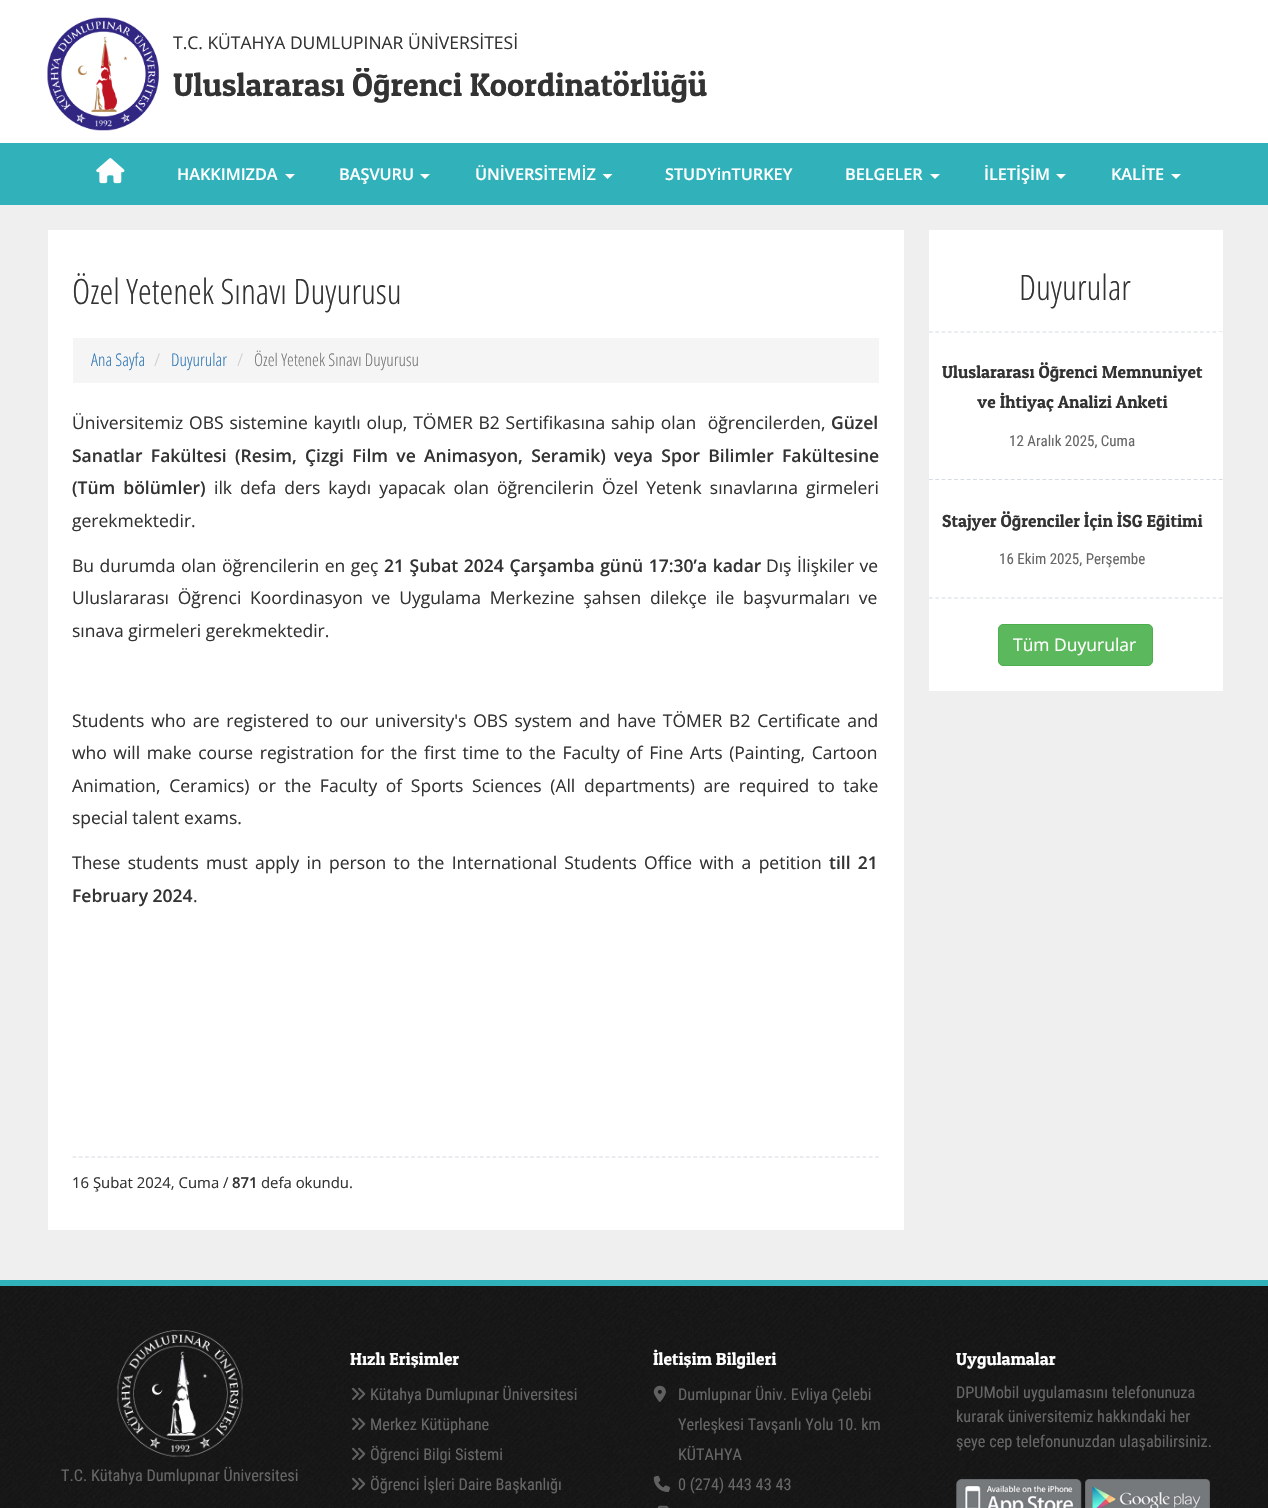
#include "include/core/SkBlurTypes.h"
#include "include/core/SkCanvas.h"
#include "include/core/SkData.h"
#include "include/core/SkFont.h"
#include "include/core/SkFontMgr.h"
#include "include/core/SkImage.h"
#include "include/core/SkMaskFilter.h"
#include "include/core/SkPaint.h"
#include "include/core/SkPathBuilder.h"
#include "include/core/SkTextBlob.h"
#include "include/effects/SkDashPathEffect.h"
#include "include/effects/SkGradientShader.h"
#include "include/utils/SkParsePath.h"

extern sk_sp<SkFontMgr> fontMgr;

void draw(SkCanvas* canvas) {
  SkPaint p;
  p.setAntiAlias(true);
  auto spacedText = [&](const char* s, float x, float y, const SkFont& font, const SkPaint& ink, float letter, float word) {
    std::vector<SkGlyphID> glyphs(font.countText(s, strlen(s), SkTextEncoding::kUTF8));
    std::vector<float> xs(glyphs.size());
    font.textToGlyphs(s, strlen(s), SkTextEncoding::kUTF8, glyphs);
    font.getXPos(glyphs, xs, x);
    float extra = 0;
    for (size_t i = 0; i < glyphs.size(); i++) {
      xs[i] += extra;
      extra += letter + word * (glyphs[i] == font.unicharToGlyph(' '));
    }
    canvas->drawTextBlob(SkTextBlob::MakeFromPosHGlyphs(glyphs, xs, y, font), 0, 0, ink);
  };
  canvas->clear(SK_ColorWHITE);
  canvas->drawImageRect(SkImages::DeferredFromEncodedData(SkData::MakeFromFileName("images/1.png")), SkRect::MakeLTRB(47, 17, 159, 131), SkSamplingOptions());
  p.setColor(SkColorSetRGB(49, 178, 187));
  canvas->drawRect(SkRect::MakeLTRB(0, 143, 1268, 205), p);
  canvas->drawImageRect(SkImages::DeferredFromEncodedData(SkData::MakeFromFileName("images/2.png")), SkRect::MakeLTRB(96, 158, 125, 184), SkSamplingOptions());
  p.setColor(SK_ColorWHITE);
  canvas->drawPath(SkPathBuilder().moveTo(285, 174).lineTo(295, 174).lineTo(290, 179).close().detach(), p);
  canvas->drawPath(SkPathBuilder().moveTo(420, 174).lineTo(430, 174).lineTo(425, 179).close().detach(), p);
  canvas->drawPath(SkPathBuilder().moveTo(602.5f, 174).lineTo(612.5f, 174).lineTo(607.5f, 179).close().detach(), p);
  canvas->drawPath(SkPathBuilder().moveTo(930, 174).lineTo(940, 174).lineTo(935, 179).close().detach(), p);
  canvas->drawPath(SkPathBuilder().moveTo(1056, 174).lineTo(1066, 174).lineTo(1061, 179).close().detach(), p);
  canvas->drawPath(SkPathBuilder().moveTo(1171, 174).lineTo(1181, 174).lineTo(1176, 179).close().detach(), p);
  p.setColor(SkColorSetRGB(239, 239, 239));
  canvas->drawRect(SkRect::MakeLTRB(0, 205, 1268, 1280), p);
  p.setColor(SK_ColorWHITE);
  canvas->drawRect(SkRect::MakeLTRB(48, 230, 904, 1230), p);
  p.setColor(SkColorSetRGB(245, 245, 245));
  canvas->drawRect(SkRect::MakeLTRB(73, 338, 879, 383), p);
  p.setStyle(SkPaint::kStroke_Style);
  p.setStrokeWidth(1.2f);
  p.setColor(SkColorSetRGB(213, 219, 224));
  p.setPathEffect(SkDashPathEffect::Make({{3.75f, 2.52f}}, 0));
  canvas->drawPath(SkPathBuilder().moveTo(72.5f, 1157).lineTo(879, 1157).detach(), p);
  p.setPathEffect(nullptr);
  p.setStyle(SkPaint::kFill_Style);
  p.setColor(SK_ColorWHITE);
  canvas->drawRect(SkRect::MakeLTRB(929, 230, 1223, 691), p);
  p.setStyle(SkPaint::kStroke_Style);
  p.setColor(SkColorSetRGB(213, 219, 224));
  p.setPathEffect(SkDashPathEffect::Make({{3.75f, 2.55f}}, 0));
  canvas->drawPath(SkPathBuilder().moveTo(929, 332).lineTo(1222.5f, 332).detach(), p);
  p.setPathEffect(nullptr);
  p.setStyle(SkPaint::kFill_Style);
  p.setColor(SK_ColorWHITE);
  canvas->drawPath(SkPathBuilder().moveTo(1222, 332).lineTo(1222, 480).lineTo(1216, 479).lineTo(1216, 332).close().detach(), p);
  p.setStyle(SkPaint::kStroke_Style);
  p.setColor(SkColorSetRGB(213, 219, 224));
  p.setPathEffect(SkDashPathEffect::Make({{3.75f, 2.55f}}, 0));
  canvas->drawPath(SkPathBuilder().moveTo(929, 479.5f).lineTo(1222.5f, 479.5f).detach(), p);
  p.setPathEffect(nullptr);
  p.setStyle(SkPaint::kFill_Style);
  p.setColor(SK_ColorWHITE);
  canvas->drawPath(SkPathBuilder().moveTo(1222, 480).lineTo(1222, 599).lineTo(1216, 598).lineTo(1216, 480).close().detach(), p);
  p.setStyle(SkPaint::kStroke_Style);
  p.setColor(SkColorSetRGB(213, 219, 224));
  p.setPathEffect(SkDashPathEffect::Make({{3.75f, 2.55f}}, 0));
  canvas->drawPath(SkPathBuilder().moveTo(929, 598).lineTo(1222.5f, 598).detach(), p);
  p.setPathEffect(nullptr);
  p.setStyle(SkPaint::kFill_Style);
  p.setColor(SkColorSetRGB(92, 184, 92));
  canvas->drawRoundRect(SkRect::MakeLTRB(998.5f, 624.5f, 1152.5f, 665.5f), 4.5f, 4.5f, p);
  p.setStyle(SkPaint::kStroke_Style);
  p.setStrokeWidth(1);
  p.setColor(SkColorSetRGB(76, 174, 76));
  canvas->drawRoundRect(SkRect::MakeLTRB(998.5f, 624.5f, 1152.5f, 665.5f), 4.5f, 4.5f, p);
  canvas->drawImageRect(SkImages::DeferredFromEncodedData(SkData::MakeFromFileName("images/3.png")), SkRect::MakeLTRB(0, 1286, 1268, 1508), SkSamplingOptions());
  p.setStyle(SkPaint::kFill_Style);
  p.setColor(SkColorSetRGB(49, 178, 187));
  canvas->drawRect(SkRect::MakeLTRB(0, 1280, 1268, 1286), p);
  canvas->drawImageRect(SkImages::DeferredFromEncodedData(SkData::MakeFromFileName("images/4.png")), SkRect::MakeLTRB(352, 1387, 366, 1400), SkSamplingOptions());
  canvas->drawImageRect(SkImages::DeferredFromEncodedData(SkData::MakeFromFileName("images/5.png")), SkRect::MakeLTRB(352, 1417, 366, 1430), SkSamplingOptions());
  canvas->drawImageRect(SkImages::DeferredFromEncodedData(SkData::MakeFromFileName("images/6.png")), SkRect::MakeLTRB(352, 1447, 366, 1460), SkSamplingOptions());
  canvas->drawImageRect(SkImages::DeferredFromEncodedData(SkData::MakeFromFileName("images/7.png")), SkRect::MakeLTRB(352, 1477, 366, 1490), SkSamplingOptions());
  canvas->drawImageRect(SkImages::DeferredFromEncodedData(SkData::MakeFromFileName("images/8.png")), SkRect::MakeLTRB(352, 1507, 360, 1508), SkSamplingOptions());
  canvas->drawImageRect(SkImages::DeferredFromEncodedData(SkData::MakeFromFileName("images/9.png")), SkRect::MakeLTRB(653, 1385, 666, 1402), SkSamplingOptions());
  canvas->drawImageRect(SkImages::DeferredFromEncodedData(SkData::MakeFromFileName("images/10.png")), SkRect::MakeLTRB(653, 1475, 670, 1492), SkSamplingOptions());
  canvas->drawImageRect(SkImages::DeferredFromEncodedData(SkData::MakeFromFileName("images/11.png")), SkRect::MakeLTRB(657, 1505, 669, 1508), SkSamplingOptions());
  canvas->drawImageRect(SkImages::DeferredFromEncodedData(SkData::MakeFromFileName("images/12.png")), SkRect::MakeLTRB(956, 1479, 1082, 1508), SkSamplingOptions());
  canvas->drawImageRect(SkImages::DeferredFromEncodedData(SkData::MakeFromFileName("images/13.png")), SkRect::MakeLTRB(1085, 1479, 1210, 1508), SkSamplingOptions());
  canvas->drawImageRect(SkImages::DeferredFromEncodedData(SkData::MakeFromFileName("images/14.png")), SkRect::MakeLTRB(117, 1330, 243, 1457), SkSamplingOptions());
  SkFont font1(fontMgr->matchFamilyStyle("Open Sans", SkFontStyle::Normal()), 17.5f);
  font1.setSubpixel(true);
  p.setColor(SkColorSetRGB(51, 51, 51));
  canvas->drawString("T.C. KÜTAHYA DUMLUPINAR ÜNİVERSİTESİ", 173, 49, font1, p);
  canvas->save();
  canvas->clipRect(SkRect::MakeLTRB(173, 68, 1221, 105));
  SkFont font2(fontMgr->matchFamilyStyle("Patua One", SkFontStyle::Normal()), 32.5f);
  font2.setSubpixel(true);
  canvas->drawString("Uluslararası Öğrenci Koordinatörlüğü", 173, 96, font2, p);
  canvas->restore();
  SkFont font3(fontMgr->matchFamilyStyle("Open Sans", SkFontStyle(600, SkFontStyle::kNormal_Width, SkFontStyle::kUpright_Slant)), 16.25f);
  font3.setSubpixel(true);
  p.setColor(SK_ColorWHITE);
  canvas->drawString("HAKKIMIZDA", 177, 180, font3, p);
  canvas->drawString("BAŞVURU", 339, 180, font3, p);
  canvas->drawString("ÜNİVERSİTEMİZ", 475, 180, font3, p);
  canvas->drawString("STUDYinTURKEY", 665, 180, font3, p);
  canvas->drawString("BELGELER", 845, 180, font3, p);
  canvas->drawString("İLETİŞİM", 984, 180, font3, p);
  canvas->drawString("KALİTE", 1111, 180, font3, p);
  SkFont font4(fontMgr->matchFamilyStyle("Open Sans Condensed", SkFontStyle(300, SkFontStyle::kNormal_Width, SkFontStyle::kUpright_Slant)), 35);
  font4.setSubpixel(true);
  p.setColor(SkColorSetRGB(51, 51, 51));
  canvas->drawString("Özel Yetenek Sınavı Duyurusu", 72, 304, font4, p);
  SkFont font5(fontMgr->matchFamilyStyle("Open Sans Condensed", SkFontStyle(300, SkFontStyle::kNormal_Width, SkFontStyle::kUpright_Slant)), 17.5f);
  font5.setSubpixel(true);
  p.setColor(SkColorSetRGB(51, 122, 183));
  canvas->drawString("Ana Sayfa", 91, 366, font5, p);
  p.setColor(SkColorSetRGB(204, 204, 204));
  canvas->drawString("/", 154, 366, font5, p);
  p.setColor(SkColorSetRGB(51, 122, 183));
  canvas->drawString("Duyurular", 171, 366, font5, p);
  p.setColor(SkColorSetRGB(204, 204, 204));
  canvas->drawString("/", 237, 366, font5, p);
  p.setColor(SkColorSetRGB(119, 119, 119));
  canvas->drawString("Özel Yetenek Sınavı Duyurusu", 254, 366, font5, p);
  p.setColor(SkColorSetRGB(51, 51, 51));
  spacedText("Üniversitemiz OBS sistemine kayıtlı olup, TÖMER B2 Sertifikasına sahip olan  öğrencilerden,", 72, 429, font1, p, 0, 1.25f);
  SkFont font6(fontMgr->matchFamilyStyle("Open Sans", SkFontStyle(600, SkFontStyle::kNormal_Width, SkFontStyle::kUpright_Slant)), 17.5f);
  font6.setSubpixel(true);
  canvas->drawString("Güzel", 831, 429, font6, p);
  spacedText("Sanatlar Fakültesi (Resim, Çizgi Film ve Animasyon, Seramik) veya Spor Bilimler Fakültesine", 72, 462, font6, p, 0, 3.75f);
  spacedText("(Tüm bölümler)", 72, 494, font6, p, 0, 3.5f);
  spacedText("ilk defa ders kaydı yapacak olan öğrencilerin Özel Yetenk sınavlarına girmeleri", 214, 494, font1, p, 0, 3.5f);
  canvas->drawString("gerekmektedir.", 72, 527, font1, p);
  spacedText("Bu durumda olan öğrencilerin en geç", 72, 572, font1, p, 0, 1);
  spacedText("21 Şubat 2024 Çarşamba günü 17:30’a kadar", 384, 572, font6, p, 0, 1);
  spacedText("Dış İlişkiler ve", 766, 572, font1, p, 0, 1);
  spacedText("Uluslararası Öğrenci Koordinasyon ve Uygulama Merkezine şahsen dilekçe ile başvurmaları ve", 72, 604, font1, p, 0, 4.25f);
  canvas->drawString("sınava girmeleri gerekmektedir.", 72, 637, font1, p);
  spacedText("Students who are registered to our university's OBS system and have TÖMER B2 Certificate and", 72, 727, font1, p, 0, 2.25f);
  spacedText("who will make course registration for the first time to the Faculty of Fine Arts (Painting, Cartoon", 72, 759, font1, p, 0, 2);
  spacedText("Animation, Ceramics) or the Faculty of Sports Sciences (All departments) are required to take", 72, 792, font1, p, 0, 4.1f);
  canvas->drawString("special talent exams.", 72, 824, font1, p);
  spacedText("These students must apply in person to the International Students Office with a petition", 72, 869, font1, p, 0, 2.75f);
  spacedText("till 21", 829, 869, font6, p, 0, 2.75f);
  canvas->drawString("February 2024", 72, 902, font6, p);
  canvas->drawString(".", 193, 902, font1, p);
  SkFont font7(fontMgr->matchFamilyStyle("Open Sans", SkFontStyle::Normal()), 14.9f);
  font7.setSubpixel(true);
  canvas->drawString("16 Şubat 2024, Cuma /", 72, 1188, font7, p);
  SkFont font8(fontMgr->matchFamilyStyle("Open Sans", SkFontStyle(600, SkFontStyle::kNormal_Width, SkFontStyle::kUpright_Slant)), 14.9f);
  font8.setSubpixel(true);
  canvas->drawString("871", 232, 1188, font8, p);
  canvas->drawString("defa okundu.", 261, 1188, font7, p);
  canvas->drawString("Duyurular", 1019, 300, font4, p);
  SkFont font9(fontMgr->matchFamilyStyle("Patua One", SkFontStyle::Normal()), 17.5f);
  font9.setSubpixel(true);
  canvas->drawString("Uluslararası Öğrenci Memnuniyet", 942, 378, font9, p);
  canvas->drawString("ve İhtiyaç Analizi Anketi", 977, 408, font9, p);
  SkFont font10(fontMgr->matchFamilyStyle("Roboto Condensed", SkFontStyle::Normal()), 15);
  font10.setSubpixel(true);
  p.setColor(SkColorSetRGB(102, 102, 102));
  canvas->drawString("12 Aralık 2025, Cuma", 1009, 446, font10, p);
  p.setColor(SkColorSetRGB(51, 51, 51));
  canvas->drawString("Stajyer Öğrenciler İçin İSG Eğitimi", 942, 527, font9, p);
  p.setColor(SkColorSetRGB(102, 102, 102));
  canvas->drawString("16 Ekim 2025, Perşembe", 999, 564, font10, p);
  p.setColor(SK_ColorWHITE);
  canvas->drawString("Tüm Duyurular", 1013, 651, font1, p);
  canvas->drawString("Hızlı Erişimler", 350, 1365, font9, p);
  SkFont font11(fontMgr->matchFamilyStyle("Roboto Condensed", SkFontStyle::Normal()), 16.25f);
  font11.setSubpixel(true);
  p.setColor(SkColorSetRGB(102, 102, 102));
  canvas->drawString("Kütahya Dumlupınar Üniversitesi", 370, 1400, font11, p);
  canvas->drawString("Merkez Kütüphane", 370, 1430, font11, p);
  canvas->drawString("Öğrenci Bilgi Sistemi", 370, 1460, font11, p);
  canvas->drawString("Öğrenci İşleri Daire Başkanlığı", 370, 1490, font11, p);
  p.setColor(SK_ColorWHITE);
  canvas->drawString("İletişim Bilgileri", 653, 1365, font9, p);
  p.setColor(SkColorSetRGB(102, 102, 102));
  canvas->drawString("Dumlupınar Üniv. Evliya Çelebi", 678, 1400, font11, p);
  canvas->drawString("Yerleşkesi Tavşanlı Yolu 10. km", 678, 1430, font11, p);
  canvas->drawString("KÜTAHYA", 678, 1460, font11, p);
  canvas->drawString("0 (274) 443 43 43", 678, 1490, font11, p);
  p.setColor(SK_ColorWHITE);
  canvas->drawString("Uygulamalar", 956, 1365, font9, p);
  p.setColor(SkColorSetRGB(102, 102, 102));
  canvas->drawString("DPUMobil uygulamasını telefonunuza", 956, 1398, font11, p);
  canvas->drawString("kurarak üniversitemiz hakkındaki her", 956, 1422, font11, p);
  canvas->drawString("şeye cep telefonunuzdan ulaşabilirsiniz.", 956, 1447, font11, p);
  canvas->drawString("T.C. Kütahya Dumlupınar Üniversitesi", 61, 1481, font11, p);
}
